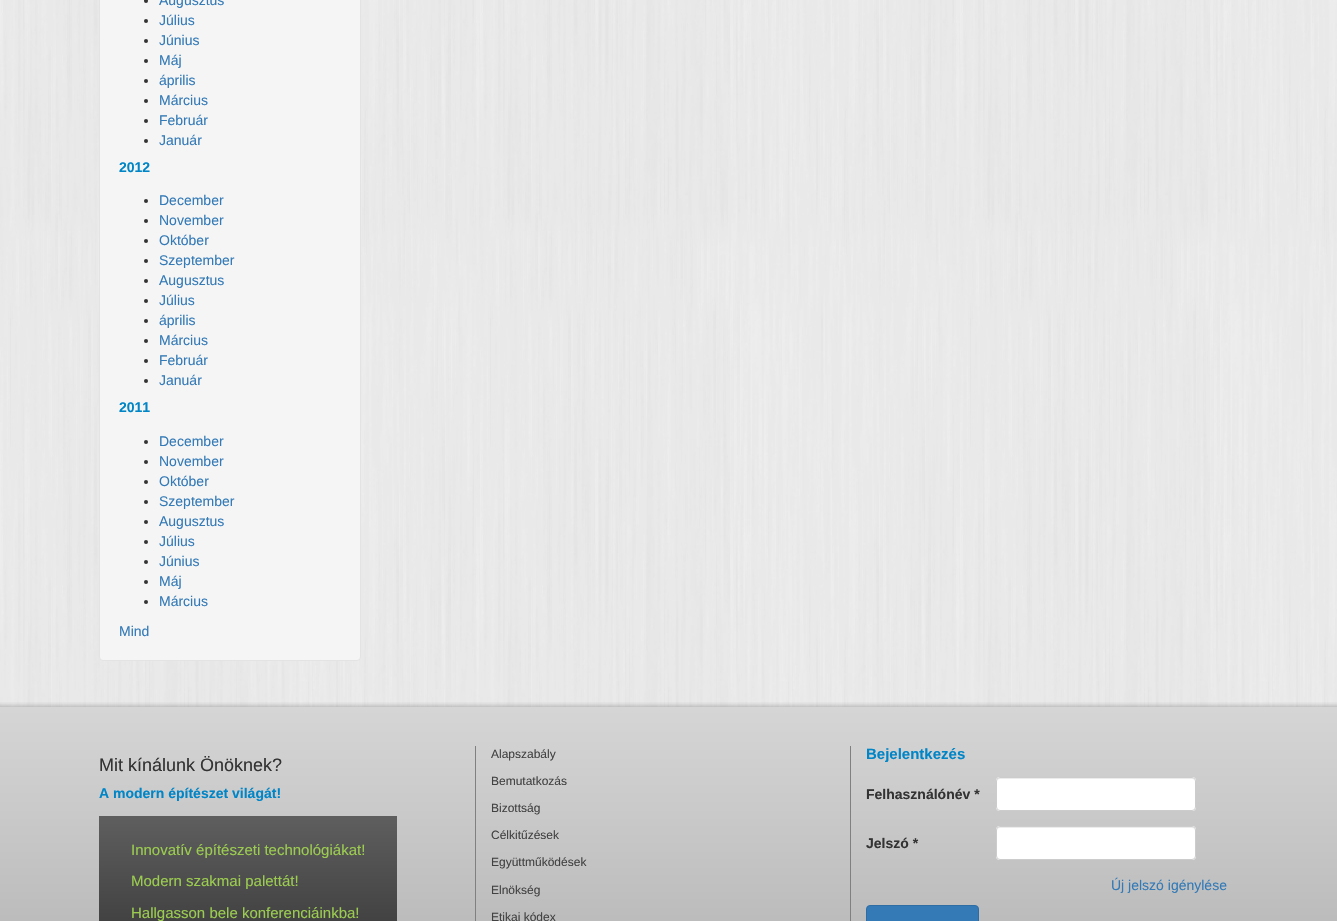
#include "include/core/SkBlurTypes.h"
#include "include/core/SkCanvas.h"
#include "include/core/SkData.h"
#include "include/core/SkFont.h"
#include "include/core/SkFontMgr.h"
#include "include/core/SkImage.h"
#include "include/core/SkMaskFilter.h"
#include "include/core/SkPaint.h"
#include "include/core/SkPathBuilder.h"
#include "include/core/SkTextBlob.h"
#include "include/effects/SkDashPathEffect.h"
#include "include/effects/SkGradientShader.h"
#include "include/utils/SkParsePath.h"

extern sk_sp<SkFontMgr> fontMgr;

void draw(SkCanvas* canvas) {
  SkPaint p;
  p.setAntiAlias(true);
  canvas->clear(SK_ColorWHITE);
  canvas->drawImageRect(SkImages::DeferredFromEncodedData(SkData::MakeFromFileName("images/1.png")), SkRect::MakeLTRB(0, 0, 1337, 707), SkSamplingOptions());
  p.setColor(SkColorSetRGB(245, 245, 245));
  canvas->drawRoundRect(SkRect::MakeLTRB(99.5f, -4.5f, 360.5f, 660.5f), 3.5f, 3.5f, p);
  p.setStyle(SkPaint::kStroke_Style);
  p.setStrokeWidth(1);
  p.setColor(SkColorSetRGB(227, 227, 227));
  canvas->drawRoundRect(SkRect::MakeLTRB(99.5f, -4.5f, 360.5f, 660.5f), 3.5f, 3.5f, p);
  p.setStyle(SkPaint::kFill_Style);
  p.setColor(SkColorSetRGB(51, 51, 51));
  canvas->drawCircle(146, 1, 2, p);
  canvas->drawCircle(146, 21, 2, p);
  canvas->drawCircle(146, 41, 2, p);
  canvas->drawCircle(146, 61, 2, p);
  canvas->drawCircle(146, 81, 2, p);
  canvas->drawCircle(146, 101, 2, p);
  canvas->drawCircle(146, 121, 2, p);
  canvas->drawCircle(146, 141, 2, p);
  canvas->drawCircle(146, 201, 2, p);
  canvas->drawCircle(146, 221, 2, p);
  canvas->drawCircle(146, 241, 2, p);
  canvas->drawCircle(146, 261, 2, p);
  canvas->drawCircle(146, 281, 2, p);
  canvas->drawCircle(146, 301, 2, p);
  canvas->drawCircle(146, 321, 2, p);
  canvas->drawCircle(146, 341, 2, p);
  canvas->drawCircle(146, 361, 2, p);
  canvas->drawCircle(146, 381, 2, p);
  canvas->drawCircle(146, 442, 2, p);
  canvas->drawCircle(146, 462, 2, p);
  canvas->drawCircle(146, 482, 2, p);
  canvas->drawCircle(146, 502, 2, p);
  canvas->drawCircle(146, 522, 2, p);
  canvas->drawCircle(146, 542, 2, p);
  canvas->drawCircle(146, 562, 2, p);
  canvas->drawCircle(146, 582, 2, p);
  canvas->drawCircle(146, 602, 2, p);
  canvas->drawImageRect(SkImages::DeferredFromEncodedData(SkData::MakeFromFileName("images/2.png")), SkRect::MakeLTRB(0, 702, 1337, 921), SkSamplingOptions());
  {
    const SkColor colors[] = {SkColorSetRGB(94, 94, 94), SkColorSetRGB(40, 40, 40)};
    const float stops[] = {0.01f, 1};
    const SkPoint ends[] = {{248, 816}, {248, 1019}};
    p.setShader(SkGradientShader::MakeLinear(ends, colors, stops, 2, SkTileMode::kClamp));
    p.setAlpha(255);
  }
  canvas->drawRect(SkRect::MakeLTRB(99, 816, 397, 921), p);
  p.setShader(nullptr);
  p.setColor(SkColorSetRGB(128, 128, 128));
  canvas->drawRect(SkRect::MakeLTRB(850, 746, 851, 921), p);
  canvas->drawRect(SkRect::MakeLTRB(475, 746, 476, 921), p);
  p.setColor(SK_ColorWHITE);
  canvas->drawRoundRect(SkRect::MakeLTRB(996, 777, 1196, 811), 4, 4, p);
  p.setColor(SkColorSetRGB(236, 236, 236));
  canvas->drawPath(SkPathBuilder().moveTo(1000, 779).lineTo(1192, 779).cubicTo(1194, 779, 1195, 780, 1195, 782).cubicTo(1195, 780, 1194, 778, 1192, 778).lineTo(1000, 778).cubicTo(998, 778, 997, 780, 997, 782).cubicTo(997, 780, 998, 779, 1000, 779).close().detach(), p);
  p.setStyle(SkPaint::kStroke_Style);
  p.setColor(SkColorSetRGB(204, 204, 204));
  canvas->drawRoundRect(SkRect::MakeLTRB(996.5f, 777.5f, 1195.5f, 810.5f), 3.5f, 3.5f, p);
  p.setStyle(SkPaint::kFill_Style);
  p.setColor(SK_ColorWHITE);
  canvas->drawRoundRect(SkRect::MakeLTRB(996, 826, 1196, 860), 4, 4, p);
  p.setColor(SkColorSetRGB(236, 236, 236));
  canvas->drawPath(SkPathBuilder().moveTo(1000, 828).lineTo(1192, 828).cubicTo(1194, 828, 1195, 829, 1195, 831).cubicTo(1195, 829, 1194, 827, 1192, 827).lineTo(1000, 827).cubicTo(998, 827, 997, 829, 997, 831).cubicTo(997, 829, 998, 828, 1000, 828).close().detach(), p);
  p.setStyle(SkPaint::kStroke_Style);
  p.setColor(SkColorSetRGB(204, 204, 204));
  canvas->drawRoundRect(SkRect::MakeLTRB(996.5f, 826.5f, 1195.5f, 859.5f), 3.5f, 3.5f, p);
  p.setStyle(SkPaint::kFill_Style);
  p.setColor(SkColorSetRGB(51, 122, 183));
  canvas->drawRoundRect(SkRect::MakeLTRB(866.5f, 905.5f, 978.5f, 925.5f), 3.5f, 3.5f, p);
  p.setStyle(SkPaint::kStroke_Style);
  p.setColor(SkColorSetRGB(46, 109, 164));
  canvas->drawRoundRect(SkRect::MakeLTRB(866.5f, 905.5f, 978.5f, 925.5f), 3.5f, 3.5f, p);
  SkFont font1(fontMgr->matchFamilyStyle("Liberation Sans", SkFontStyle::Normal()), 14);
  font1.setSubpixel(true);
  p.setStyle(SkPaint::kFill_Style);
  p.setColor(SkColorSetRGB(51, 122, 183));
  canvas->drawString("Augusztus", 159, 5, font1, p);
  canvas->drawString("Július", 159, 25, font1, p);
  canvas->drawString("Június", 159, 45, font1, p);
  canvas->drawString("Máj", 159, 65, font1, p);
  canvas->drawString("április", 159, 85, font1, p);
  canvas->drawString("Március", 159, 105, font1, p);
  canvas->drawString("Február", 159, 125, font1, p);
  canvas->drawString("Január", 159, 145, font1, p);
  SkFont font2(fontMgr->matchFamilyStyle("Liberation Sans", SkFontStyle::Bold()), 14);
  font2.setSubpixel(true);
  p.setColor(SkColorSetRGB(0, 133, 199));
  canvas->drawString("2012", 119, 172, font2, p);
  p.setColor(SkColorSetRGB(51, 122, 183));
  canvas->drawString("December", 159, 205, font1, p);
  canvas->drawString("November", 159, 225, font1, p);
  canvas->drawString("Október", 159, 245, font1, p);
  canvas->drawString("Szeptember", 159, 265, font1, p);
  canvas->drawString("Augusztus", 159, 285, font1, p);
  canvas->drawString("Július", 159, 305, font1, p);
  canvas->drawString("április", 159, 325, font1, p);
  canvas->drawString("Március", 159, 345, font1, p);
  canvas->drawString("Február", 159, 365, font1, p);
  canvas->drawString("Január", 159, 385, font1, p);
  p.setColor(SkColorSetRGB(0, 133, 199));
  canvas->drawString("2011", 119, 412, font2, p);
  p.setColor(SkColorSetRGB(51, 122, 183));
  canvas->drawString("December", 159, 446, font1, p);
  canvas->drawString("November", 159, 466, font1, p);
  canvas->drawString("Október", 159, 486, font1, p);
  canvas->drawString("Szeptember", 159, 506, font1, p);
  canvas->drawString("Augusztus", 159, 526, font1, p);
  canvas->drawString("Július", 159, 546, font1, p);
  canvas->drawString("Június", 159, 566, font1, p);
  canvas->drawString("Máj", 159, 586, font1, p);
  canvas->drawString("Március", 159, 606, font1, p);
  canvas->drawString("Mind", 119, 636, font1, p);
  SkFont font3(fontMgr->matchFamilyStyle("Liberation Sans", SkFontStyle::Normal()), 18);
  font3.setSubpixel(true);
  p.setColor(SkColorSetRGB(51, 51, 51));
  canvas->drawString("Mit kínálunk Önöknek?", 99, 771, font3, p);
  p.setColor(SkColorSetRGB(0, 133, 199));
  canvas->drawString("A modern építészet világát!", 99, 798, font2, p);
  SkFont font4(fontMgr->matchFamilyStyle("Liberation Sans", SkFontStyle::Normal()), 15);
  font4.setSubpixel(true);
  p.setColor(SkColorSetRGB(155, 204, 80));
  canvas->drawString("Innovatív építészeti technológiákat!", 131, 855, font4, p);
  canvas->drawString("Modern szakmai palettát!", 131, 886, font4, p);
  canvas->drawString("Hallgasson bele konferenciáinkba!", 131, 918, font4, p);
  SkFont font5(fontMgr->matchFamilyStyle("Liberation Sans", SkFontStyle::Normal()), 12);
  font5.setSubpixel(true);
  p.setColor(SkColorSetRGB(66, 66, 66));
  canvas->drawString("Alapszabály", 491, 758, font5, p);
  canvas->drawString("Bemutatkozás", 491, 785, font5, p);
  canvas->drawString("Bizottság", 491, 812, font5, p);
  canvas->drawString("Célkitűzések", 491, 839, font5, p);
  canvas->drawString("Együttműködések", 491, 866, font5, p);
  canvas->drawString("Elnökség", 491, 894, font5, p);
  canvas->drawString("Etikai kódex", 491, 921, font5, p);
  SkFont font6(fontMgr->matchFamilyStyle("Liberation Sans", SkFontStyle::Bold()), 15);
  font6.setSubpixel(true);
  p.setColor(SkColorSetRGB(0, 133, 199));
  canvas->drawString("Bejelentkezés", 866, 759, font6, p);
  p.setColor(SkColorSetRGB(51, 51, 51));
  canvas->drawString("Felhasználónév *", 866, 799, font2, p);
  canvas->drawString("Jelszó *", 866, 848, font2, p);
  p.setColor(SkColorSetRGB(51, 122, 183));
  canvas->drawString("Új jelszó igénylése", 1111, 890, font1, p);
}
